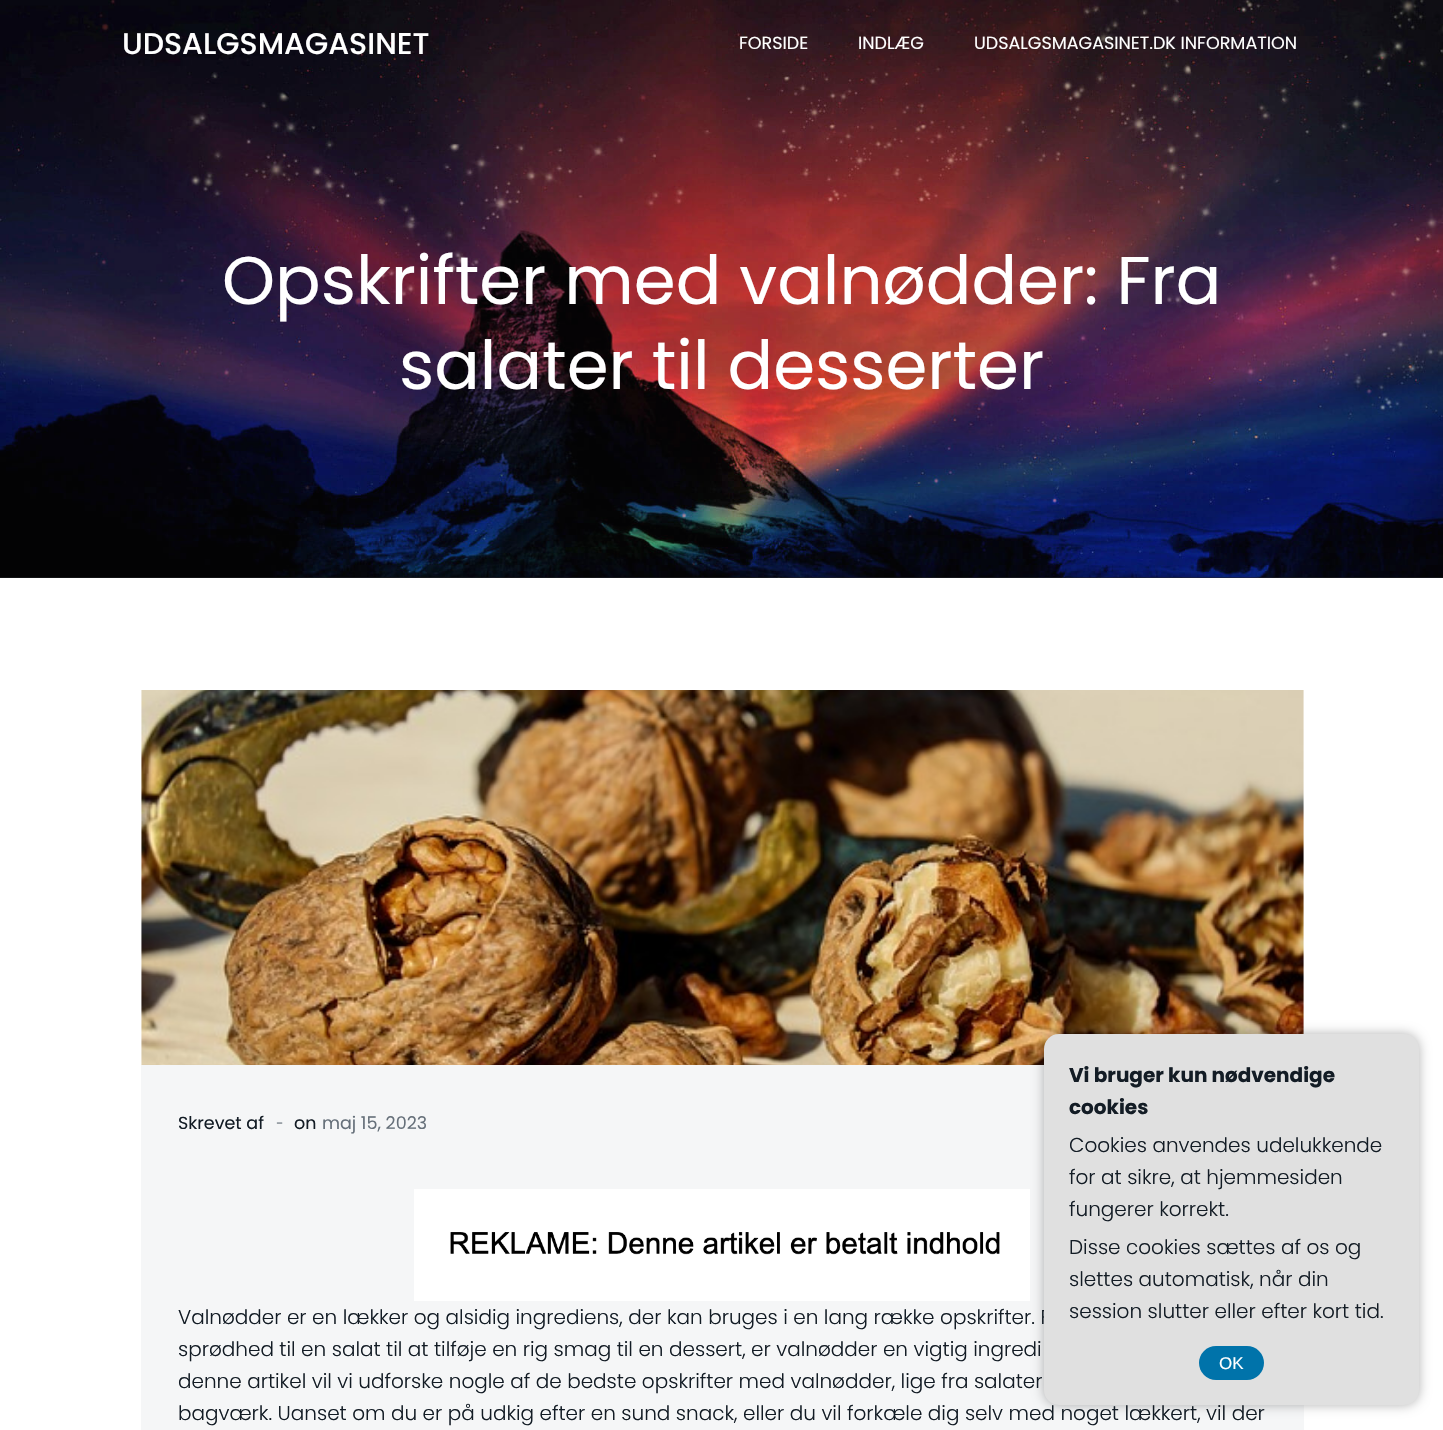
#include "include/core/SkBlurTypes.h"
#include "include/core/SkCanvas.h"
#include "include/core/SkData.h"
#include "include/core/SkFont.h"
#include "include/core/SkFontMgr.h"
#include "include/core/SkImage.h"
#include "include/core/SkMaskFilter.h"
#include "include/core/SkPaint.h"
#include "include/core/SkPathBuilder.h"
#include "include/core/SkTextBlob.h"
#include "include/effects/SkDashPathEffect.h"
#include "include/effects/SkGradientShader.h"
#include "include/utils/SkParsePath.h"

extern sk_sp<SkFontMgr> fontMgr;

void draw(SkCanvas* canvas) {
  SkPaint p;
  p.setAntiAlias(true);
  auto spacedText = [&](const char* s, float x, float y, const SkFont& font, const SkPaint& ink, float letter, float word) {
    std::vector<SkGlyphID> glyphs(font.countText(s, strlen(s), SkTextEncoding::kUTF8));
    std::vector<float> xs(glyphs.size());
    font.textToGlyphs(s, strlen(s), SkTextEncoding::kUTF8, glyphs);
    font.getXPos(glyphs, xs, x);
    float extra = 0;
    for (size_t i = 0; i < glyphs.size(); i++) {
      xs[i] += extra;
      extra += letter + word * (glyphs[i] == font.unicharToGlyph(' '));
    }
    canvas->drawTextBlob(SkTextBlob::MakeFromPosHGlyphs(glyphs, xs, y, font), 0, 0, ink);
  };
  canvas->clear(SK_ColorWHITE);
  p.setColor(SkColorSetRGB(31, 34, 37));
  canvas->drawRect(SkRect::MakeLTRB(0, 577, 1443, 578), p);
  canvas->drawImageRect(SkImages::DeferredFromEncodedData(SkData::MakeFromFileName("images/1.png")), SkRect::MakeLTRB(0, 0, 1443, 578), SkSamplingOptions());
  canvas->drawImageRect(SkImages::DeferredFromEncodedData(SkData::MakeFromFileName("images/2.png")), SkRect::MakeLTRB(141, 690, 1304, 1065), SkSamplingOptions());
  p.setColor(SkColorSetRGB(245, 246, 247));
  canvas->drawRect(SkRect::MakeLTRB(141, 1065, 1304, 1430), p);
  canvas->drawImageRect(SkImages::DeferredFromEncodedData(SkData::MakeFromFileName("images/3.png")), SkRect::MakeLTRB(414, 1189, 1030, 1301), SkSamplingOptions());
  p.setColor(SkColorSetARGB(77, 0, 0, 0));
  p.setMaskFilter(SkMaskFilter::MakeBlur(kNormal_SkBlurStyle, 6));
  canvas->drawRoundRect(SkRect::MakeLTRB(1044, 1034, 1419, 1405), 15, 15, p);
  p.setMaskFilter(nullptr);
  SkFont font1(fontMgr->matchFamilyStyle("Poppins", SkFontStyle(500, SkFontStyle::kNormal_Width, SkFontStyle::kUpright_Slant)), 30);
  font1.setSubpixel(true);
  p.setColor(SK_ColorWHITE);
  canvas->drawString("UDSALGSMAGASINET", 122, 54, font1, p);
  SkFont font2(fontMgr->matchFamilyStyle("Poppins", SkFontStyle::Normal()), 17.5f);
  font2.setSubpixel(true);
  canvas->drawString("FORSIDE", 739, 49, font2, p);
  canvas->drawString("INDLÆG", 858, 49, font2, p);
  canvas->drawString("UDSALGSMAGASINET.DK INFORMATION", 974, 49, font2, p);
  SkFont font3(fontMgr->matchFamilyStyle("Poppins", SkFontStyle::Normal()), 67.5f);
  font3.setSubpixel(true);
  canvas->drawString("Opskrifter med valnødder: Fra", 222, 304, font3, p);
  canvas->drawString("salater til desserter", 399, 389, font3, p);
  p.setColor(SkColorSetRGB(19, 28, 37));
  canvas->drawString("Skrevet af", 178, 1129, font2, p);
  SkFont font4(fontMgr->matchFamilyStyle("Open Sans", SkFontStyle(300, SkFontStyle::kNormal_Width, SkFontStyle::kUpright_Slant)), 22);
  font4.setSubpixel(true);
  p.setColor(SkColorSetRGB(102, 112, 122));
  spacedText("-", 276, 1129, font4, p, 2, 0);
  p.setColor(SkColorSetRGB(19, 28, 37));
  canvas->drawString("on", 294, 1129, font2, p);
  p.setColor(SkColorSetRGB(102, 112, 122));
  canvas->drawString("maj 15, 2023", 322, 1129, font2, p);
  SkFont font5(fontMgr->matchFamilyStyle("Poppins", SkFontStyle(300, SkFontStyle::kNormal_Width, SkFontStyle::kUpright_Slant)), 20);
  font5.setSubpixel(true);
  p.setColor(SkColorSetRGB(19, 28, 37));
  canvas->drawString("Valnødder er en lækker og alsidig ingrediens, der kan bruges i en lang række opskrifter. F", 178, 1324, font5, p);
  canvas->drawString("sprødhed til en salat til at tilføje en rig smag til en dessert, er valnødder en vigtig ingredi", 178, 1356, font5, p);
  canvas->drawString("denne artikel vil vi udforske nogle af de bedste opskrifter med valnødder, lige fra salater", 178, 1388, font5, p);
  canvas->drawString("bagværk. Uanset om du er på udkig efter en sund snack, eller du vil forkæle dig selv med noget lækkert, vil der", 178, 1420, font5, p);
  p.setColor(SkColorSetRGB(224, 224, 224));
  canvas->drawRoundRect(SkRect::MakeLTRB(1044, 1034, 1419, 1405), 15, 15, p);
  SkFont font6(fontMgr->matchFamilyStyle("Poppins", SkFontStyle::Bold()), 20);
  font6.setSubpixel(true);
  p.setColor(SkColorSetRGB(19, 28, 37));
  canvas->drawString("Vi bruger kun nødvendige", 1069, 1082, font6, p);
  canvas->drawString("cookies", 1069, 1114, font6, p);
  canvas->drawString("Cookies anvendes udelukkende", 1069, 1152, font5, p);
  canvas->drawString("for at sikre, at hjemmesiden", 1069, 1184, font5, p);
  canvas->drawString("fungerer korrekt.", 1069, 1216, font5, p);
  canvas->drawString("Disse cookies sættes af os og", 1069, 1254, font5, p);
  canvas->drawString("slettes automatisk, når din", 1069, 1286, font5, p);
  canvas->drawString("session slutter eller efter kort tid.", 1069, 1318, font5, p);
  p.setColor(SkColorSetRGB(0, 115, 170));
  canvas->drawRoundRect(SkRect::MakeLTRB(1199, 1346, 1264, 1380), 17, 17, p);
  SkFont font7(fontMgr->matchFamilyStyle("Liberation Sans", SkFontStyle::Normal()), 17);
  font7.setSubpixel(true);
  p.setColor(SK_ColorWHITE);
  canvas->drawString("OK", 1219, 1369, font7, p);
}
